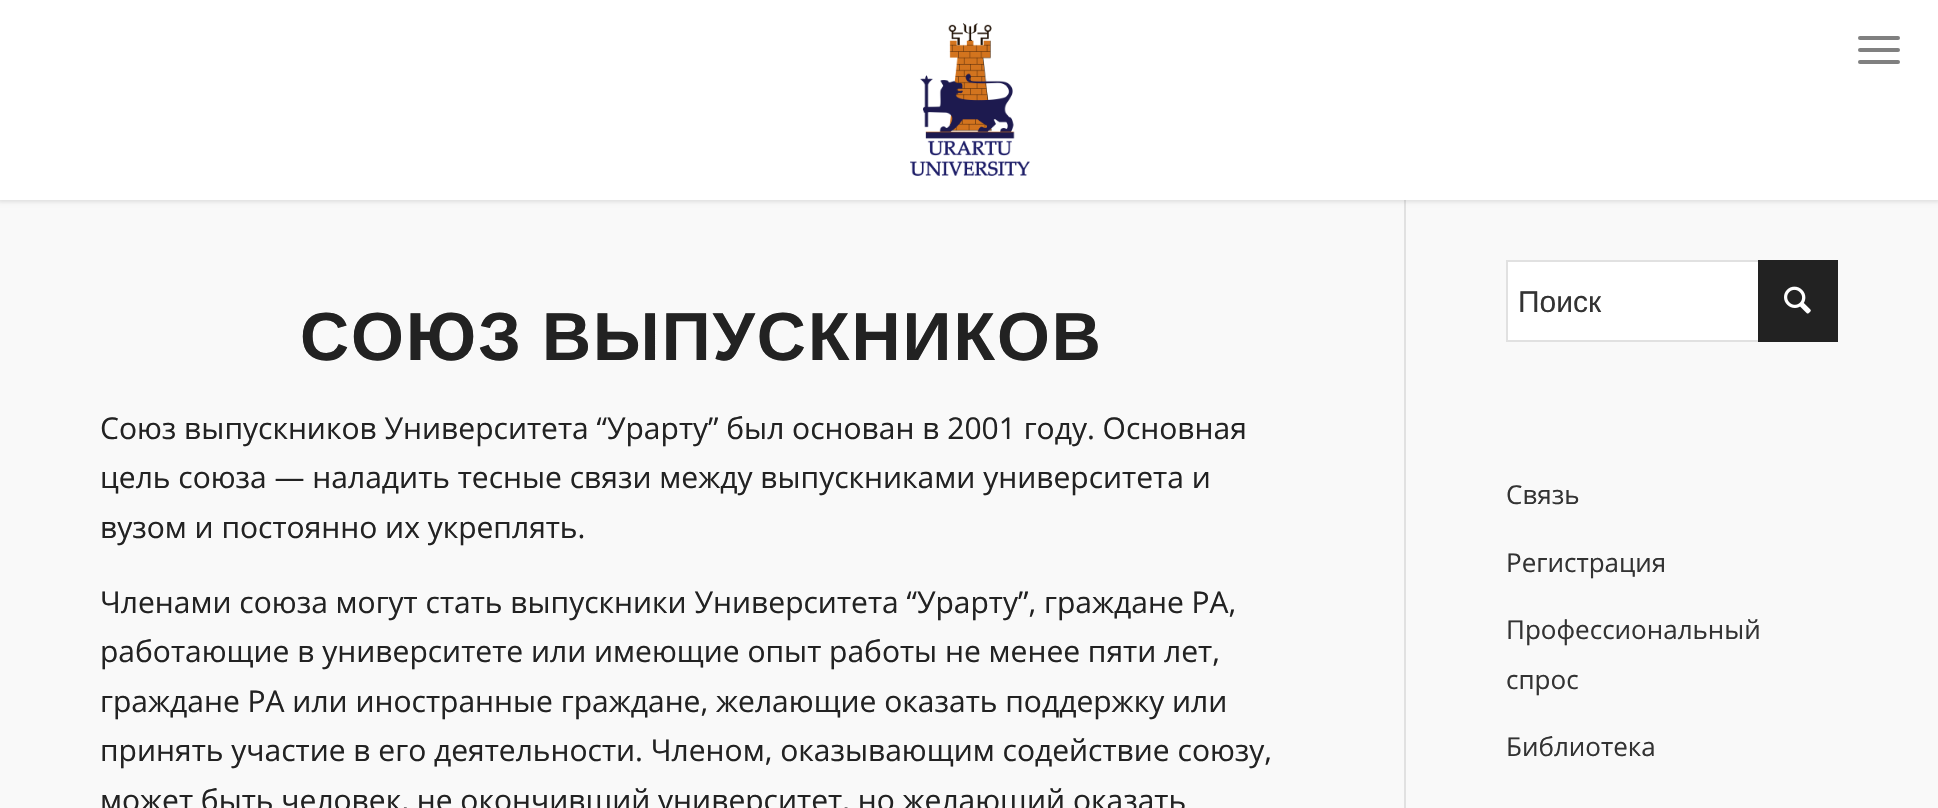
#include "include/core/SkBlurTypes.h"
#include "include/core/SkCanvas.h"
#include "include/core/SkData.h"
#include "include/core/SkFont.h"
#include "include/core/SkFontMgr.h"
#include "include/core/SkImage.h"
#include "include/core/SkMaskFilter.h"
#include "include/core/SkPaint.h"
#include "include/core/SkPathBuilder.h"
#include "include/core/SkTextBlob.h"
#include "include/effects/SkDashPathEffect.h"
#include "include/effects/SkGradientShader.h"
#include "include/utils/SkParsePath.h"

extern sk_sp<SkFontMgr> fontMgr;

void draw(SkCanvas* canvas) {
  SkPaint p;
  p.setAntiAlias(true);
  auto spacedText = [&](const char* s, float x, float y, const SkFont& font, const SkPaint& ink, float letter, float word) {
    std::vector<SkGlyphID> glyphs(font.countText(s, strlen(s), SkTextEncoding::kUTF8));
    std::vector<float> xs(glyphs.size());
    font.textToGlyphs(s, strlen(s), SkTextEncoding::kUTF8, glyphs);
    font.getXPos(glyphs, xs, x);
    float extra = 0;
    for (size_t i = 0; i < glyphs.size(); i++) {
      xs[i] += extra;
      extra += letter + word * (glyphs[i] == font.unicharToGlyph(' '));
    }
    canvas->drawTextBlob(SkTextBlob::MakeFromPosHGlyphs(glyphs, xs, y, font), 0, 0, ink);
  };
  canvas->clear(SkColorSetRGB(249, 249, 249));
  p.setColor(SkColorSetRGB(225, 225, 225));
  canvas->drawRect(SkRect::MakeLTRB(1404, 200, 1406, 808), p);
  p.setColor(SkColorSetARGB(26, 0, 0, 0));
  p.setMaskFilter(SkMaskFilter::MakeBlur(kNormal_SkBlurStyle, 2));
  canvas->drawRect(SkRect::MakeLTRB(-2, -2, 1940, 202), p);
  p.setMaskFilter(nullptr);
  p.setColor(SK_ColorWHITE);
  canvas->drawRect(SkRect::MakeLTRB(0, 0, 1938, 200), p);
  canvas->drawImageRect(SkImages::DeferredFromEncodedData(SkData::MakeFromFileName("images/1.png")), SkRect::MakeLTRB(910, 23, 1030, 176), SkSamplingOptions());
  p.setColor(SkColorSetRGB(128, 128, 128));
  canvas->drawRoundRect(SkRect::MakeLTRB(1858, 48, 1900, 52), 2, 2, p);
  canvas->drawRoundRect(SkRect::MakeLTRB(1858, 36, 1900, 40), 2, 2, p);
  canvas->drawRoundRect(SkRect::MakeLTRB(1858, 60, 1900, 64), 2, 2, p);
  p.setColor(SK_ColorWHITE);
  canvas->drawRect(SkRect::MakeLTRB(1508, 262, 1758, 340), p);
  p.setStyle(SkPaint::kStroke_Style);
  p.setStrokeWidth(2);
  p.setColor(SkColorSetRGB(225, 225, 225));
  canvas->drawRect(SkRect::MakeLTRB(1507, 261, 1837, 341), p);
  p.setStyle(SkPaint::kFill_Style);
  p.setColor(SkColorSetRGB(34, 34, 34));
  canvas->drawRect(SkRect::MakeLTRB(1758, 260, 1838, 342), p);
  canvas->drawImageRect(SkImages::DeferredFromEncodedData(SkData::MakeFromFileName("images/2.png")), SkRect::MakeLTRB(1784, 286, 1811, 314), SkSamplingOptions());
  SkFont font1(fontMgr->matchFamilyStyle("Liberation Sans", SkFontStyle::Bold()), 68);
  font1.setSubpixel(true);
  spacedText("СОЮЗ", 300, 360, font1, p, 2, 0);
  spacedText("ВЫПУСКНИКОВ", 542, 360, font1, p, 2, 0);
  SkFont font2(fontMgr->matchFamilyStyle("Open Sans", SkFontStyle::Normal()), 30);
  font2.setSubpixel(true);
  canvas->drawString("Союз выпускников Университета “Урарту” был основан в 2001 году. Основная", 100, 439, font2, p);
  canvas->drawString("цель союза — наладить тесные связи между выпускниками университета и", 100, 488, font2, p);
  canvas->drawString("вузом и постоянно их укреплять.", 100, 538, font2, p);
  canvas->drawString("Членами союза могут стать выпускники Университета “Урарту”, граждане РА,", 100, 613, font2, p);
  canvas->drawString("работающие в университете или имеющие опыт работы не менее пяти лет,", 100, 662, font2, p);
  canvas->drawString("граждане РА или иностранные граждане, желающие оказать поддержку или", 100, 712, font2, p);
  canvas->drawString("принять участие в его деятельности. Членом, оказывающим содействие союзу,", 100, 761, font2, p);
  canvas->drawString("может быть человек, не окончивший университет, но желающий оказать", 100, 811, font2, p);
  SkFont font3(fontMgr->matchFamilyStyle("Liberation Sans", SkFontStyle::Normal()), 30);
  font3.setSubpixel(true);
  p.setColor(SkColorSetRGB(51, 51, 51));
  canvas->drawString("Поиск", 1518, 312, font3, p);
  SkFont font4(fontMgr->matchFamilyStyle("Open Sans", SkFontStyle::Normal()), 26);
  font4.setSubpixel(true);
  canvas->drawString("Связь", 1506, 504, font4, p);
  canvas->drawString("Регистрация", 1506, 572, font4, p);
  canvas->drawString("Профессиональный", 1506, 639, font4, p);
  canvas->drawString("спрос", 1506, 689, font4, p);
  canvas->drawString("Библиотека", 1506, 756, font4, p);
}
